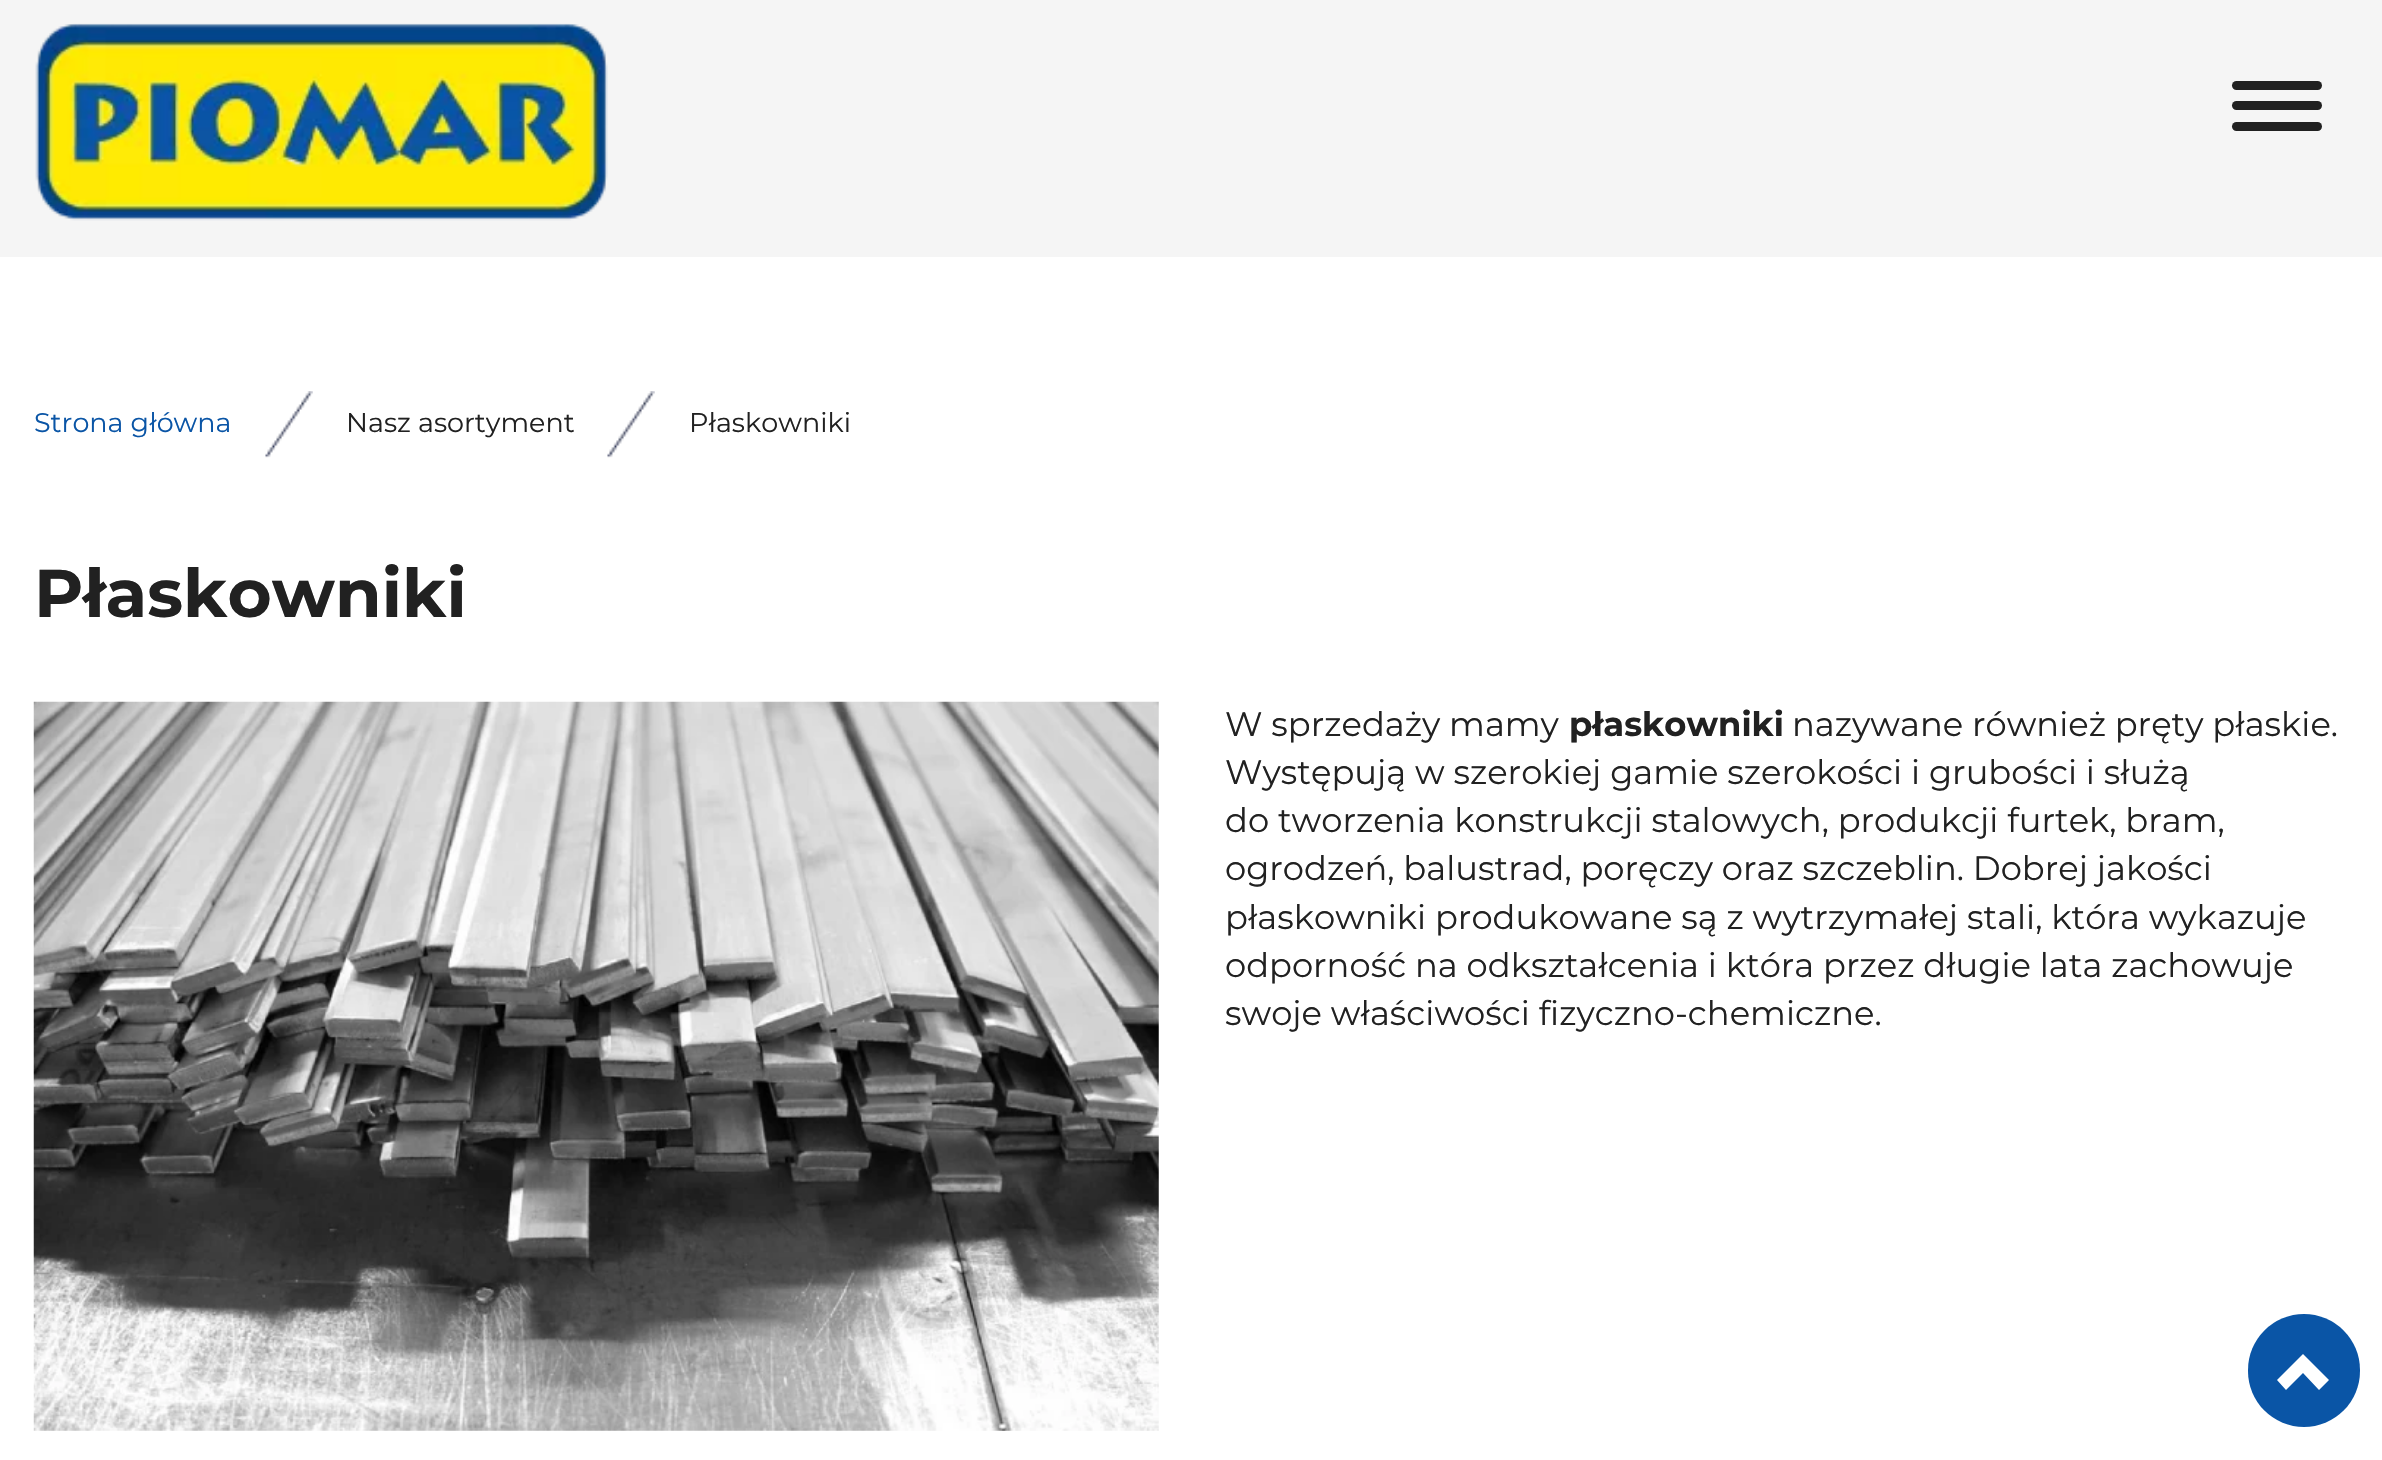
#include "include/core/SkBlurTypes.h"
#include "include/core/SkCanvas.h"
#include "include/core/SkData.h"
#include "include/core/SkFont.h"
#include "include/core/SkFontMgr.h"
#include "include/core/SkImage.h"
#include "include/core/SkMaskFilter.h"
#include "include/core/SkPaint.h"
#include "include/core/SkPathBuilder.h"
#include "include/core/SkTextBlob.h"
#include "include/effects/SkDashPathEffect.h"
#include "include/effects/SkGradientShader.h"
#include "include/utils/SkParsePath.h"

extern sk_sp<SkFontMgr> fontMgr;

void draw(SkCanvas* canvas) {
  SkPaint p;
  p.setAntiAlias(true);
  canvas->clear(SK_ColorWHITE);
  p.setColor(SkColorSetRGB(245, 245, 245));
  canvas->drawRect(SkRect::MakeLTRB(0, 0, 2382, 257), p);
  canvas->drawImageRect(SkImages::DeferredFromEncodedData(SkData::MakeFromFileName("images/1.png")), SkRect::MakeLTRB(35, 23, 608, 221), SkSamplingOptions());
  p.setColor(SkColorSetRGB(33, 33, 33));
  canvas->drawRoundRect(SkRect::MakeLTRB(2232, 81, 2322, 90), 4.5f, 4.5f, p);
  canvas->drawRoundRect(SkRect::MakeLTRB(2232, 101, 2322, 110), 4.5f, 4.5f, p);
  canvas->drawRoundRect(SkRect::MakeLTRB(2232, 122, 2322, 131), 4.5f, 4.5f, p);
  canvas->drawImageRect(SkImages::DeferredFromEncodedData(SkData::MakeFromFileName("images/2.png")), SkRect::MakeLTRB(265, 391, 313, 458), SkSamplingOptions());
  canvas->drawImageRect(SkImages::DeferredFromEncodedData(SkData::MakeFromFileName("images/2.png")), SkRect::MakeLTRB(607, 391, 655, 458), SkSamplingOptions());
  canvas->drawImageRect(SkImages::DeferredFromEncodedData(SkData::MakeFromFileName("images/3.png")), SkRect::MakeLTRB(33, 701, 1159, 1431), SkSamplingOptions());
  p.setColor(SkColorSetRGB(10, 85, 166));
  canvas->drawRoundRect(SkRect::MakeLTRB(2248, 1314, 2360, 1427), 56, 56, p);
  p.setColor(SK_ColorWHITE);
  canvas->drawPath(SkPathBuilder().moveTo(2329, 1380).lineTo(2319, 1390).lineTo(2303, 1373).lineTo(2286, 1390).lineTo(2277, 1380).lineTo(2303, 1354).close().detach(), p);
  SkFont font1(fontMgr->matchFamilyStyle("Montserrat", SkFontStyle::Normal()), 27);
  font1.setSubpixel(true);
  p.setColor(SkColorSetRGB(10, 85, 166));
  canvas->drawString("Strona główna", 34, 432, font1, p);
  p.setColor(SkColorSetRGB(33, 33, 33));
  canvas->drawString("Nasz asortyment", 346, 432, font1, p);
  canvas->drawString("Płaskowniki", 689, 432, font1, p);
  SkFont font2(fontMgr->matchFamilyStyle("Montserrat", SkFontStyle::Bold()), 67.5f);
  font2.setSubpixel(true);
  canvas->drawString("Płaskowniki", 34, 617, font2, p);
  SkFont font3(fontMgr->matchFamilyStyle("Montserrat", SkFontStyle::Normal()), 33.75f);
  font3.setSubpixel(true);
  canvas->drawString("W sprzedaży mamy", 1225, 736, font3, p);
  SkFont font4(fontMgr->matchFamilyStyle("Montserrat", SkFontStyle::Bold()), 33.75f);
  font4.setSubpixel(true);
  canvas->drawString("płaskowniki", 1569, 736, font4, p);
  canvas->drawString("nazywane również pręty płaskie.", 1792, 736, font3, p);
  canvas->drawString("Występują w szerokiej gamie szerokości i grubości i służą", 1225, 784, font3, p);
  canvas->drawString("do tworzenia konstrukcji stalowych, produkcji furtek, bram,", 1225, 832, font3, p);
  canvas->drawString("ogrodzeń, balustrad, poręczy oraz szczeblin. Dobrej jakości", 1225, 880, font3, p);
  canvas->drawString("płaskowniki produkowane są z wytrzymałej stali, która wykazuje", 1225, 929, font3, p);
  canvas->drawString("odporność na odkształcenia i która przez długie lata zachowuje", 1225, 977, font3, p);
  canvas->drawString("swoje właściwości fizyczno-chemiczne.", 1225, 1025, font3, p);
}
